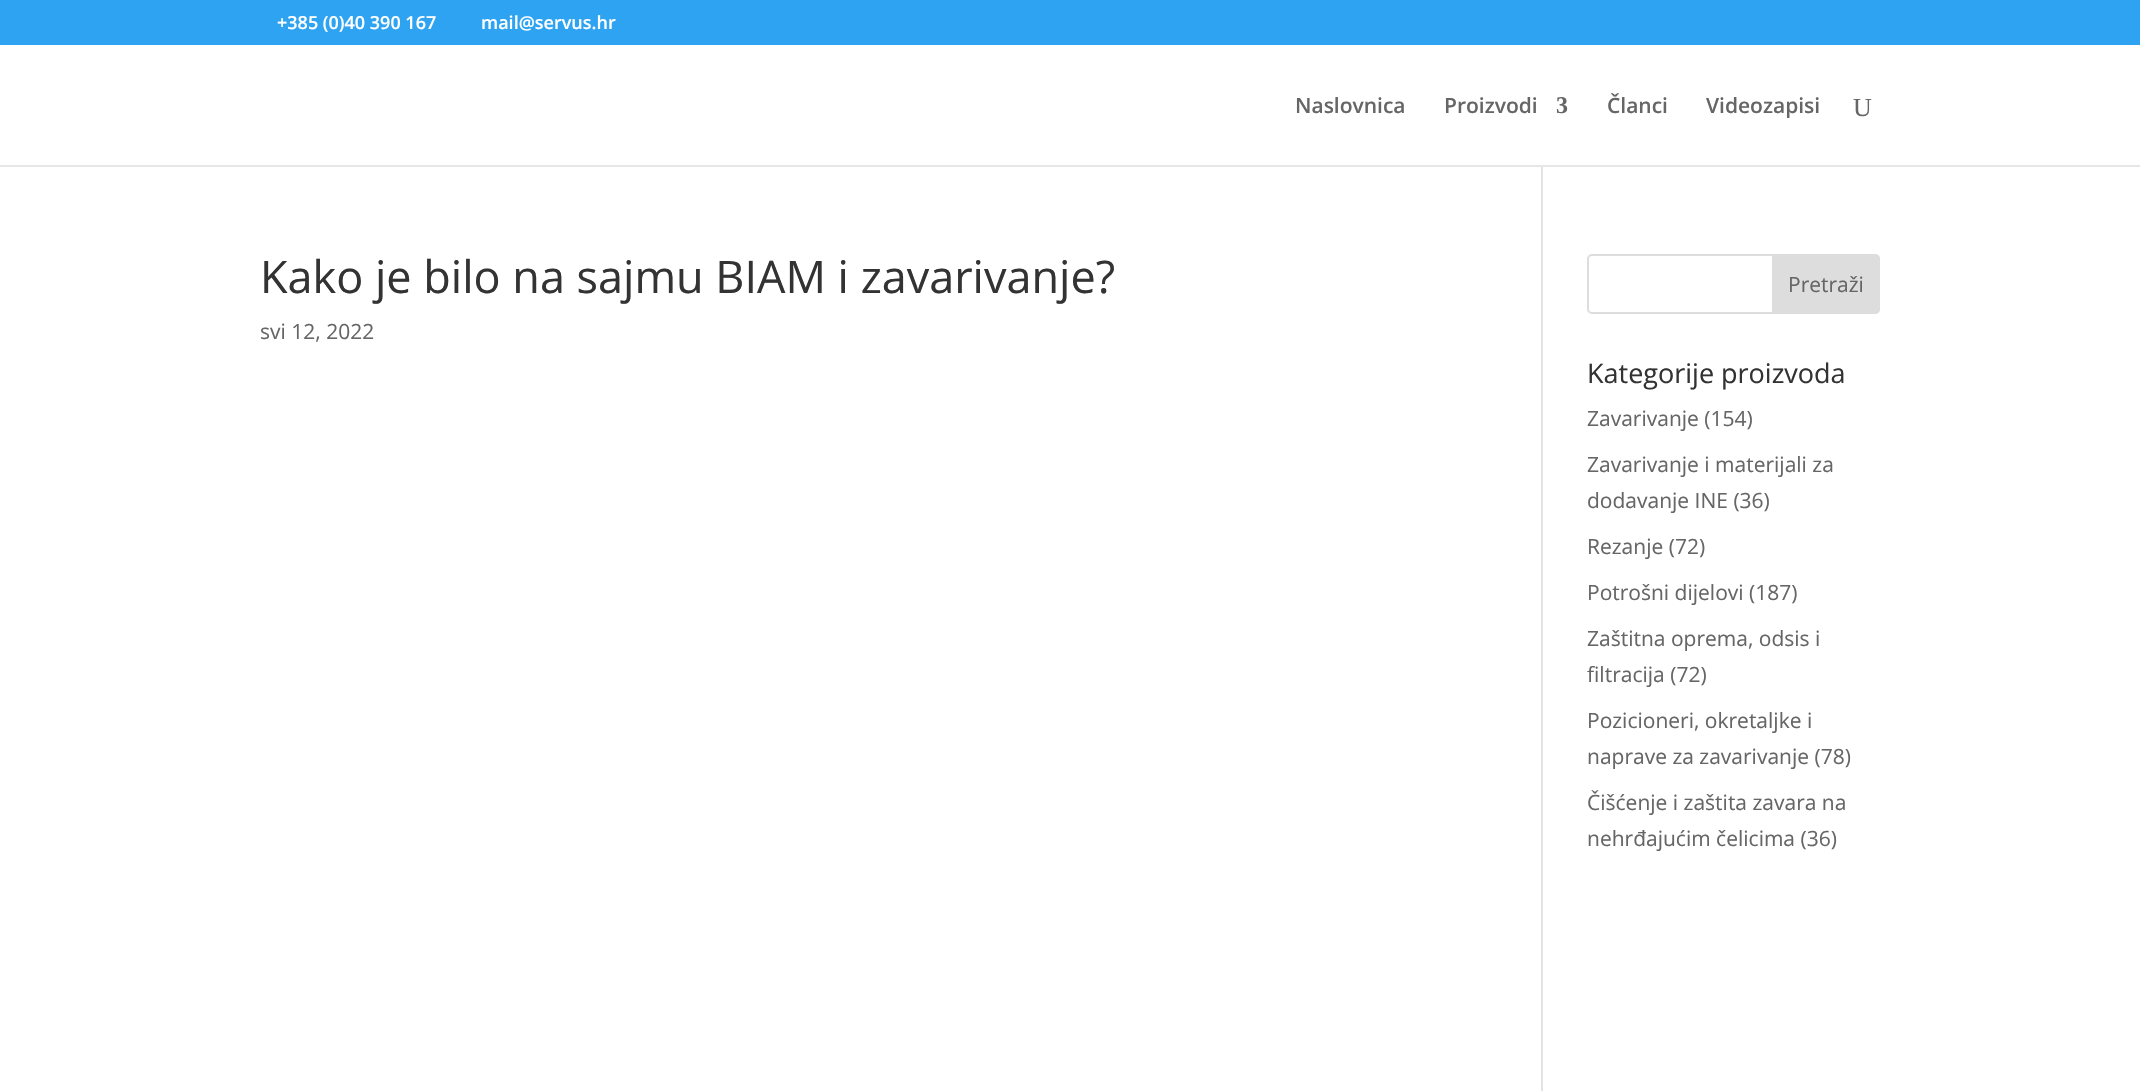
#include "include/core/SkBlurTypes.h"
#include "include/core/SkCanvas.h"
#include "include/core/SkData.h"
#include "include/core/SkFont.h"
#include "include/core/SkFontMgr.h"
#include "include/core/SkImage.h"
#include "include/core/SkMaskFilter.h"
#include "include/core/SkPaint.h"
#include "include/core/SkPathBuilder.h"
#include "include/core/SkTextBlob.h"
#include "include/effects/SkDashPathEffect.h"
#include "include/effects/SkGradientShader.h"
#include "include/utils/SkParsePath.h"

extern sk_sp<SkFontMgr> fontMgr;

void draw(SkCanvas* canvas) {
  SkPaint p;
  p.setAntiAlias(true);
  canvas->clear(SK_ColorWHITE);
  p.setColor(SkColorSetRGB(46, 163, 242));
  canvas->drawRect(SkRect::MakeLTRB(0, 0, 2140, 45), p);
  p.setColor(SkColorSetRGB(230, 230, 230));
  canvas->drawPath(SkPathBuilder().moveTo(0, 165).lineTo(0, 167).lineTo(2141, 167).lineTo(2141, 47).lineTo(2140, 47).lineTo(2140, 165).close().detach(), p);
  p.setColor(SkColorSetRGB(226, 226, 226));
  canvas->drawRect(SkRect::MakeLTRB(1541, 167, 1543, 1091), p);
  p.setStyle(SkPaint::kStroke_Style);
  p.setStrokeWidth(2);
  p.setColor(SkColorSetRGB(221, 221, 221));
  canvas->drawRoundRect(SkRect::MakeLTRB(1588, 255, 1879, 313), 4, 4, p);
  p.setStyle(SkPaint::kFill_Style);
  canvas->drawPath(SkPathBuilder().moveTo(1773, 255).lineTo(1875, 255).cubicTo(1877, 255, 1879, 257, 1879, 259).lineTo(1879, 309).cubicTo(1879, 311, 1877, 313, 1875, 313).lineTo(1773, 313).close().detach(), p);
  p.setStyle(SkPaint::kStroke_Style);
  canvas->drawPath(SkPathBuilder().moveTo(1773, 255).lineTo(1875, 255).cubicTo(1877, 255, 1879, 257, 1879, 259).lineTo(1879, 309).cubicTo(1879, 311, 1877, 313, 1875, 313).lineTo(1773, 313).close().detach(), p);
  SkFont font1(fontMgr->matchFamilyStyle("Open Sans", SkFontStyle(600, SkFontStyle::kNormal_Width, SkFontStyle::kUpright_Slant)), 18);
  font1.setSubpixel(true);
  p.setStyle(SkPaint::kFill_Style);
  p.setColor(SK_ColorWHITE);
  canvas->drawString("+385 (0)40 390 167", 277, 29, font1, p);
  canvas->drawString("mail@servus.hr", 481, 29, font1, p);
  SkFont font2(fontMgr->matchFamilyStyle("Open Sans", SkFontStyle(600, SkFontStyle::kNormal_Width, SkFontStyle::kUpright_Slant)), 21);
  font2.setSubpixel(true);
  p.setColor(SkColorSetRGB(102, 102, 102));
  canvas->drawString("Naslovnica", 1295, 113, font2, p);
  canvas->drawString("Proizvodi", 1444, 113, font2, p);
  SkFont font3(fontMgr->matchFamilyStyle("Liberation Serif", SkFontStyle::Bold()), 24);
  font3.setSubpixel(true);
  canvas->drawString("3", 1556, 113, font3, p);
  canvas->drawString("Članci", 1607, 113, font2, p);
  canvas->drawString("Videozapisi", 1706, 113, font2, p);
  SkFont font4(fontMgr->matchFamilyStyle("Liberation Serif", SkFontStyle::Normal()), 26);
  font4.setSubpixel(true);
  canvas->drawString("U", 1853, 116, font4, p);
  SkFont font5(fontMgr->matchFamilyStyle("Open Sans", SkFontStyle::Normal()), 45);
  font5.setSubpixel(true);
  p.setColor(SkColorSetRGB(51, 51, 51));
  canvas->drawString("Kako je bilo na sajmu BIAM i zavarivanje?", 260, 293, font5, p);
  SkFont font6(fontMgr->matchFamilyStyle("Open Sans", SkFontStyle::Normal()), 21);
  font6.setSubpixel(true);
  p.setColor(SkColorSetRGB(102, 102, 102));
  canvas->drawString("svi 12, 2022", 260, 339, font6, p);
  canvas->drawString("Pretraži", 1788, 292, font6, p);
  SkFont font7(fontMgr->matchFamilyStyle("Open Sans", SkFontStyle::Normal()), 27);
  font7.setSubpixel(true);
  p.setColor(SkColorSetRGB(51, 51, 51));
  canvas->drawString("Kategorije proizvoda", 1587, 383, font7, p);
  p.setColor(SkColorSetRGB(102, 102, 102));
  canvas->drawString("Zavarivanje (154)", 1587, 426, font6, p);
  canvas->drawString("Zavarivanje i materijali za", 1587, 472, font6, p);
  canvas->drawString("dodavanje INE (36)", 1587, 508, font6, p);
  canvas->drawString("Rezanje (72)", 1587, 554, font6, p);
  canvas->drawString("Potrošni dijelovi (187)", 1587, 600, font6, p);
  canvas->drawString("Zaštitna oprema, odsis i", 1587, 646, font6, p);
  canvas->drawString("filtracija (72)", 1587, 682, font6, p);
  canvas->drawString("Pozicioneri, okretaljke i", 1587, 728, font6, p);
  canvas->drawString("naprave za zavarivanje (78)", 1587, 764, font6, p);
  canvas->drawString("Čišćenje i zaštita zavara na", 1587, 810, font6, p);
  canvas->drawString("nehrđajućim čelicima (36)", 1587, 846, font6, p);
}
